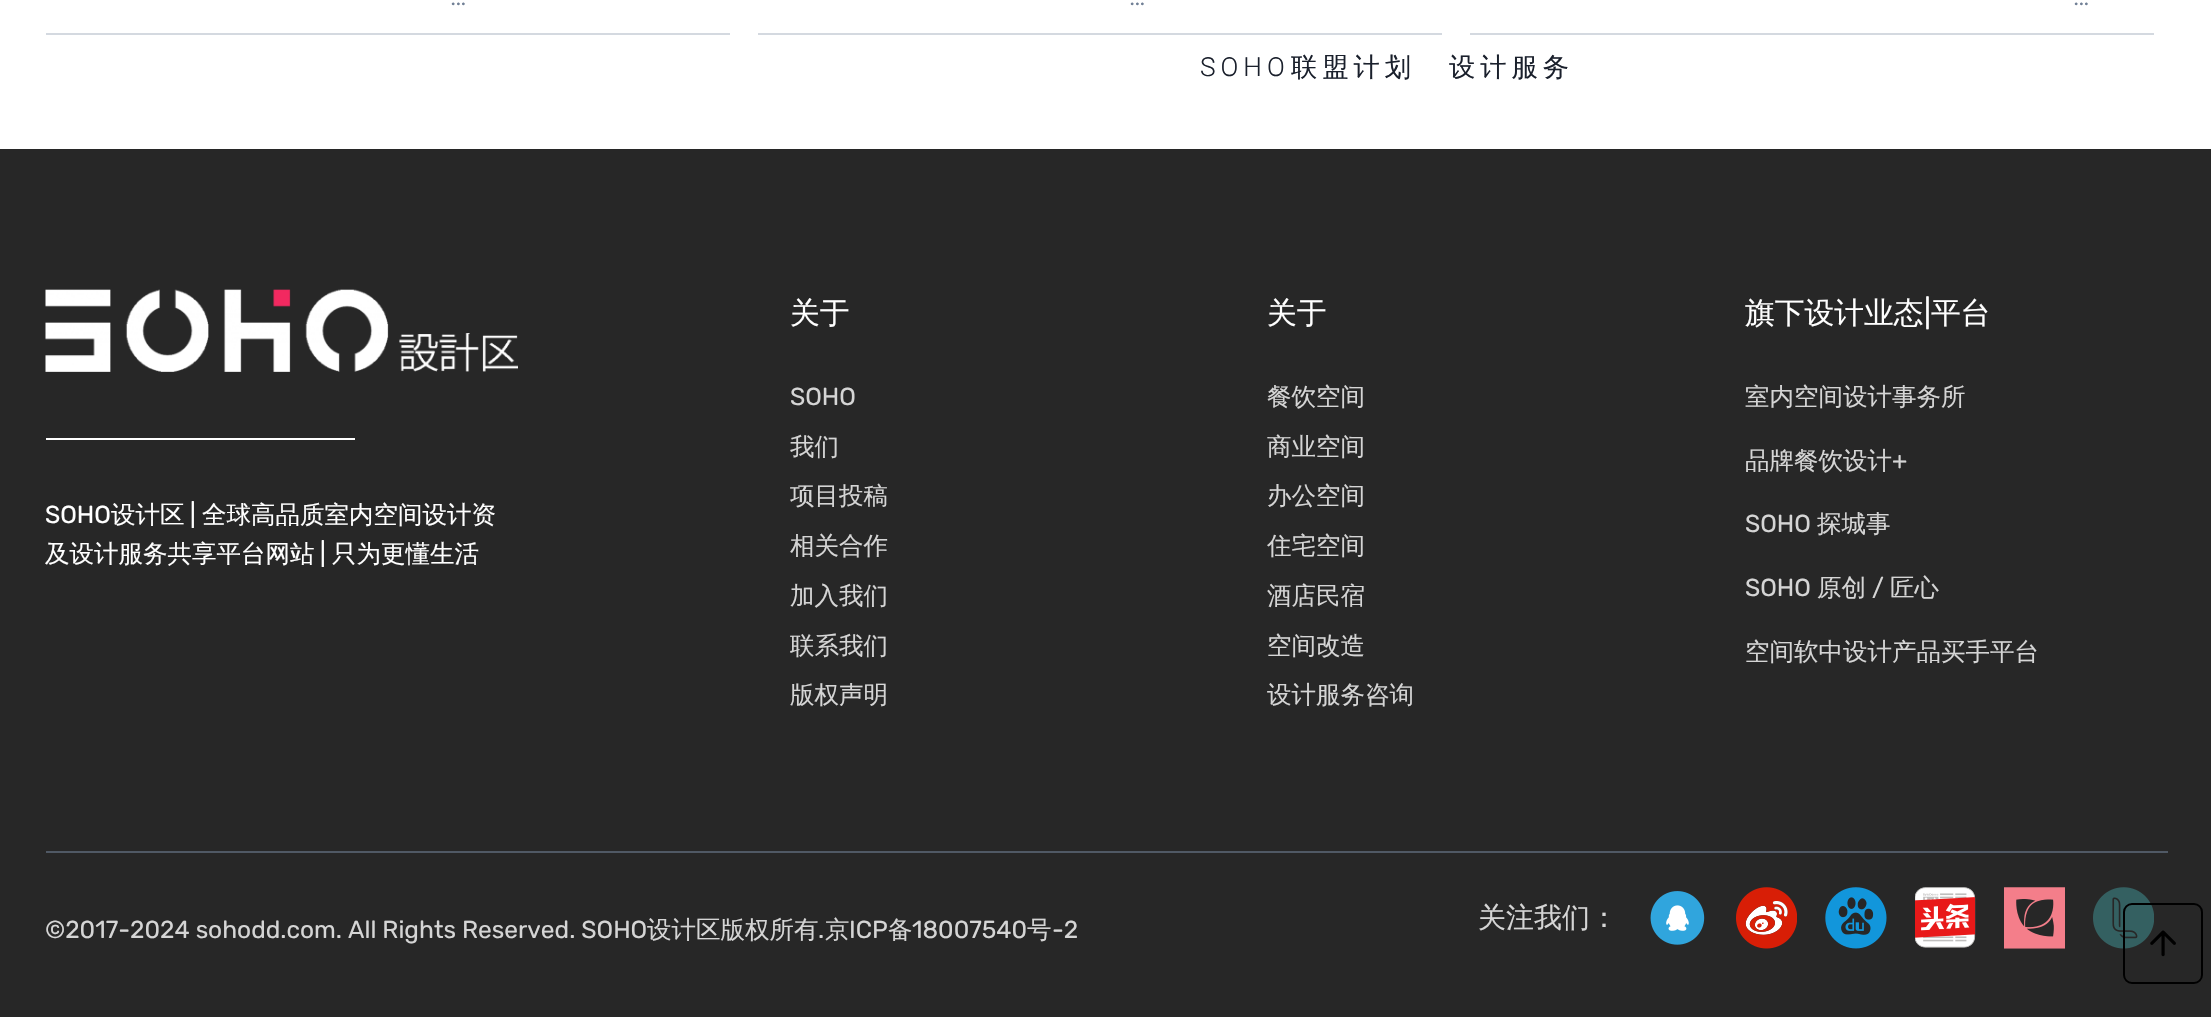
#include "include/core/SkBlurTypes.h"
#include "include/core/SkCanvas.h"
#include "include/core/SkData.h"
#include "include/core/SkFont.h"
#include "include/core/SkFontMgr.h"
#include "include/core/SkImage.h"
#include "include/core/SkMaskFilter.h"
#include "include/core/SkPaint.h"
#include "include/core/SkPathBuilder.h"
#include "include/core/SkTextBlob.h"
#include "include/effects/SkDashPathEffect.h"
#include "include/effects/SkGradientShader.h"
#include "include/utils/SkParsePath.h"

extern sk_sp<SkFontMgr> fontMgr;

void draw(SkCanvas* canvas) {
  SkPaint p;
  p.setAntiAlias(true);
  auto spacedText = [&](const char* s, float x, float y, const SkFont& font, const SkPaint& ink, float letter, float word) {
    std::vector<SkGlyphID> glyphs(font.countText(s, strlen(s), SkTextEncoding::kUTF8));
    std::vector<float> xs(glyphs.size());
    font.textToGlyphs(s, strlen(s), SkTextEncoding::kUTF8, glyphs);
    font.getXPos(glyphs, xs, x);
    float extra = 0;
    for (size_t i = 0; i < glyphs.size(); i++) {
      xs[i] += extra;
      extra += letter + word * (glyphs[i] == font.unicharToGlyph(' '));
    }
    canvas->drawTextBlob(SkTextBlob::MakeFromPosHGlyphs(glyphs, xs, y, font), 0, 0, ink);
  };
  canvas->clear(SK_ColorWHITE);
  p.setColor(SkColorSetRGB(212, 217, 224));
  canvas->drawRect(SkRect::MakeLTRB(46, 33, 730, 35), p);
  canvas->drawRect(SkRect::MakeLTRB(758, 33, 1442, 35), p);
  canvas->drawRect(SkRect::MakeLTRB(1470, 33, 2154, 35), p);
  p.setColor(SkColorSetRGB(39, 39, 39));
  canvas->drawRect(SkRect::MakeLTRB(0, 149, 2211, 1017), p);
  canvas->drawImageRect(SkImages::DeferredFromEncodedData(SkData::MakeFromFileName("images/1.png")), SkRect::MakeLTRB(45, 289, 518, 372), SkSamplingOptions());
  p.setColor(SK_ColorWHITE);
  canvas->drawRect(SkRect::MakeLTRB(46, 438, 355, 440), p);
  p.setColor(SkColorSetRGB(80, 89, 101));
  canvas->drawRect(SkRect::MakeLTRB(46, 851, 2168, 853), p);
  canvas->drawImageRect(SkImages::DeferredFromEncodedData(SkData::MakeFromFileName("images/2.png")), SkRect::MakeLTRB(1650, 891, 1705, 945), SkSamplingOptions());
  canvas->drawImageRect(SkImages::DeferredFromEncodedData(SkData::MakeFromFileName("images/3.png")), SkRect::MakeLTRB(1736, 887, 1797, 949), SkSamplingOptions());
  canvas->drawImageRect(SkImages::DeferredFromEncodedData(SkData::MakeFromFileName("images/4.png")), SkRect::MakeLTRB(1825, 887, 1887, 949), SkSamplingOptions());
  canvas->drawImageRect(SkImages::DeferredFromEncodedData(SkData::MakeFromFileName("images/5.png")), SkRect::MakeLTRB(1915, 887, 1976, 948), SkSamplingOptions());
  canvas->drawImageRect(SkImages::DeferredFromEncodedData(SkData::MakeFromFileName("images/6.png")), SkRect::MakeLTRB(2004, 887, 2065, 949), SkSamplingOptions());
  canvas->drawImageRect(SkImages::DeferredFromEncodedData(SkData::MakeFromFileName("images/7.png")), SkRect::MakeLTRB(2093, 887, 2154, 949), SkSamplingOptions());
  p.setStyle(SkPaint::kStroke_Style);
  p.setStrokeWidth(2);
  p.setColor(SK_ColorBLACK);
  canvas->drawRoundRect(SkRect::MakeLTRB(2124, 904, 2202, 983), 8, 8, p);
  canvas->drawImageRect(SkImages::DeferredFromEncodedData(SkData::MakeFromFileName("images/8.png")), SkRect::MakeLTRB(2150, 930, 2176, 957), SkSamplingOptions());
  SkFont font1(fontMgr->matchFamilyStyle("Roboto", SkFontStyle::Normal()), 24.5f);
  font1.setSubpixel(true);
  p.setStyle(SkPaint::kFill_Style);
  p.setColor(SkColorSetRGB(113, 128, 150));
  canvas->drawString("…", 450, 5, font1, p);
  canvas->drawString("…", 1129, 5, font1, p);
  canvas->drawString("…", 2073, 5, font1, p);
  SkFont font2(fontMgr->matchFamilyStyle("Roboto", SkFontStyle(300, SkFontStyle::kNormal_Width, SkFontStyle::kUpright_Slant)), 26.25f);
  font2.setSubpixel(true);
  p.setColor(SkColorSetRGB(26, 32, 44));
  spacedText("SOHO", 1200, 76, font2, p, 5, 0);
  SkFont font3(fontMgr->matchFamilyStyle("WenQuanYi Zen Hei", SkFontStyle(500, SkFontStyle::kNormal_Width, SkFontStyle::kUpright_Slant)), 26.25f);
  font3.setSubpixel(true);
  spacedText("联盟计划", 1291, 76, font3, p, 5, 0);
  spacedText("设计服务", 1449, 76, font3, p, 5, 0);
  SkFont font4(fontMgr->matchFamilyStyle("Rubik", SkFontStyle(300, SkFontStyle::kNormal_Width, SkFontStyle::kUpright_Slant)), 24.5f);
  font4.setSubpixel(true);
  p.setColor(SK_ColorWHITE);
  canvas->drawString("SOHO", 45, 523, font4, p);
  SkFont font5(fontMgr->matchFamilyStyle("WenQuanYi Zen Hei", SkFontStyle(500, SkFontStyle::kNormal_Width, SkFontStyle::kUpright_Slant)), 24.5f);
  font5.setSubpixel(true);
  canvas->drawString("设计区", 111, 523, font5, p);
  canvas->drawString("|", 190, 523, font4, p);
  canvas->drawString("全球高品质室内空间设计资", 202, 523, font5, p);
  canvas->drawString("及设计服务共享平台网站", 45, 562, font5, p);
  canvas->drawString("|", 320, 562, font4, p);
  canvas->drawString("只为更懂生活", 332, 562, font5, p);
  SkFont font6(fontMgr->matchFamilyStyle("WenQuanYi Zen Hei", SkFontStyle(500, SkFontStyle::kNormal_Width, SkFontStyle::kUpright_Slant)), 29.75f);
  font6.setSubpixel(true);
  canvas->drawString("关于", 790, 323, font6, p);
  p.setColor(SkColorSetRGB(213, 213, 213));
  canvas->drawString("SOHO", 790, 405, font4, p);
  canvas->drawString("我们", 790, 455, font5, p);
  canvas->drawString("项目投稿", 790, 504, font5, p);
  canvas->drawString("相关合作", 790, 554, font5, p);
  canvas->drawString("加入我们", 790, 604, font5, p);
  canvas->drawString("联系我们", 790, 654, font5, p);
  canvas->drawString("版权声明", 790, 703, font5, p);
  p.setColor(SK_ColorWHITE);
  canvas->drawString("关于", 1267, 323, font6, p);
  p.setColor(SkColorSetRGB(213, 213, 213));
  canvas->drawString("餐饮空间", 1267, 405, font5, p);
  canvas->drawString("商业空间", 1267, 455, font5, p);
  canvas->drawString("办公空间", 1267, 504, font5, p);
  canvas->drawString("住宅空间", 1267, 554, font5, p);
  canvas->drawString("酒店民宿", 1267, 604, font5, p);
  canvas->drawString("空间改造", 1267, 654, font5, p);
  canvas->drawString("设计服务咨询", 1267, 703, font5, p);
  p.setColor(SK_ColorWHITE);
  canvas->drawString("旗下设计业态", 1745, 323, font6, p);
  SkFont font7(fontMgr->matchFamilyStyle("Rubik", SkFontStyle(300, SkFontStyle::kNormal_Width, SkFontStyle::kUpright_Slant)), 29.75f);
  font7.setSubpixel(true);
  canvas->drawString("|", 1924, 323, font7, p);
  canvas->drawString("平台", 1931, 323, font6, p);
  p.setColor(SkColorSetRGB(213, 213, 213));
  canvas->drawString("室内空间设计事务所", 1745, 405, font5, p);
  canvas->drawString("品牌餐饮设计", 1745, 469, font5, p);
  canvas->drawString("+", 1892, 469, font4, p);
  canvas->drawString("SOHO", 1745, 532, font4, p);
  canvas->drawString("探城事", 1817, 532, font5, p);
  canvas->drawString("SOHO", 1745, 596, font4, p);
  canvas->drawString("原创", 1817, 596, font5, p);
  canvas->drawString("/", 1872, 596, font4, p);
  canvas->drawString("匠心", 1890, 596, font5, p);
  canvas->drawString("空间软中设计产品买手平台", 1745, 660, font5, p);
  canvas->drawString("©2017-2024 sohodd.com. All Rights Reserved. SOHO", 45, 938, font4, p);
  canvas->drawString("设计区版权所有", 647, 938, font5, p);
  canvas->drawString(".", 818, 938, font4, p);
  canvas->drawString("京", 825, 938, font5, p);
  canvas->drawString("ICP", 849, 938, font4, p);
  canvas->drawString("备", 888, 938, font5, p);
  canvas->drawString("18007540", 912, 938, font4, p);
  canvas->drawString("号", 1027, 938, font5, p);
  canvas->drawString("-2", 1052, 938, font4, p);
  SkFont font8(fontMgr->matchFamilyStyle("WenQuanYi Zen Hei", SkFontStyle(500, SkFontStyle::kNormal_Width, SkFontStyle::kUpright_Slant)), 28);
  font8.setSubpixel(true);
  canvas->drawString("关注我们：", 1478, 927, font8, p);
}
